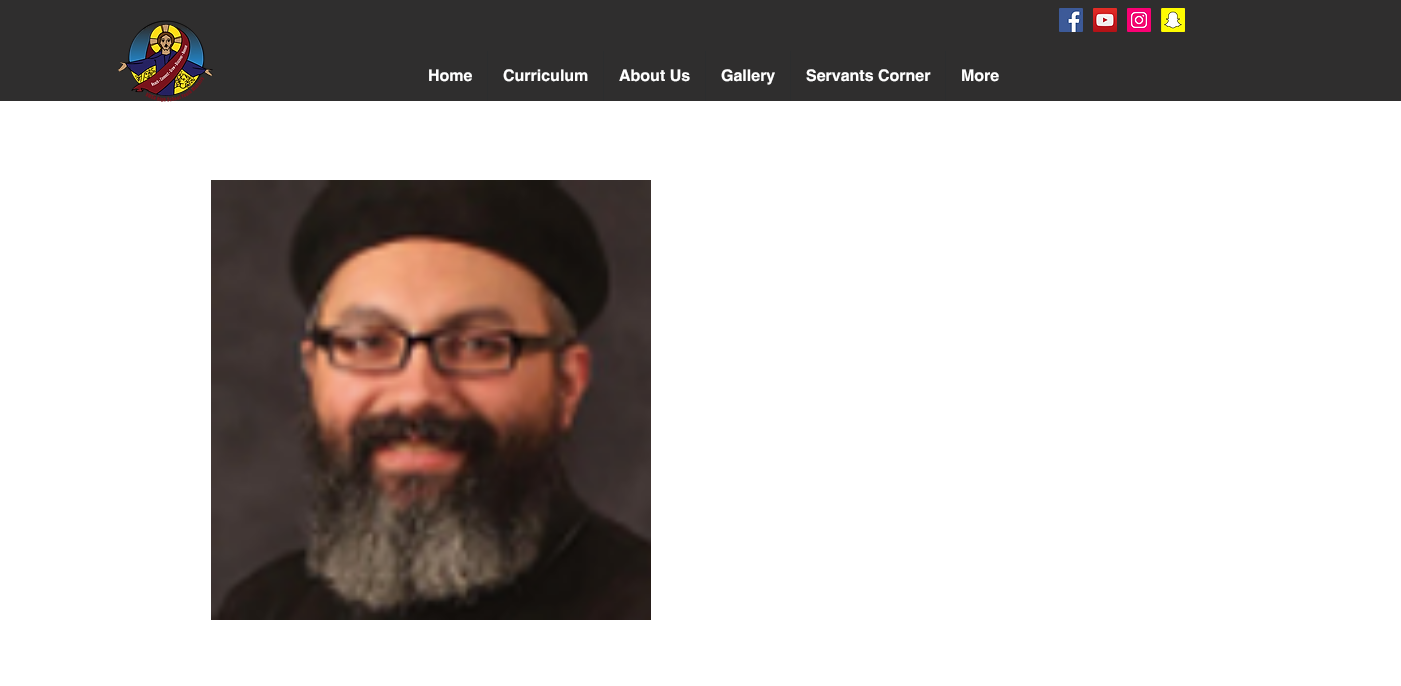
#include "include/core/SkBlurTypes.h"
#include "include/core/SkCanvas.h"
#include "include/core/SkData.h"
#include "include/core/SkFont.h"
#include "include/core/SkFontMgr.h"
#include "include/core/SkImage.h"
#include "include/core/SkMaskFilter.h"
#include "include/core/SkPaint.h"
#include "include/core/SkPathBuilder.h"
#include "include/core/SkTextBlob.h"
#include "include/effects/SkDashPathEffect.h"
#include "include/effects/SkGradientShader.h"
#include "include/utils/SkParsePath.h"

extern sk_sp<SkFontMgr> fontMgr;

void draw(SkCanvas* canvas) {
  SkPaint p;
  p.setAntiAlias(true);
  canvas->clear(SK_ColorWHITE);
  p.setColor(SkColorSetRGB(47, 46, 46));
  canvas->drawRect(SkRect::MakeLTRB(0, 0, 1401, 101), p);
  canvas->drawImageRect(SkImages::DeferredFromEncodedData(SkData::MakeFromFileName("images/1.png")), SkRect::MakeLTRB(118, 20, 213, 102), SkSamplingOptions());
  canvas->drawImageRect(SkImages::DeferredFromEncodedData(SkData::MakeFromFileName("images/2.png")), SkRect::MakeLTRB(1059, 8, 1083, 32), SkSamplingOptions());
  canvas->drawImageRect(SkImages::DeferredFromEncodedData(SkData::MakeFromFileName("images/3.png")), SkRect::MakeLTRB(1093, 8, 1117, 32), SkSamplingOptions());
  canvas->drawImageRect(SkImages::DeferredFromEncodedData(SkData::MakeFromFileName("images/4.png")), SkRect::MakeLTRB(1127, 8, 1151, 32), SkSamplingOptions());
  canvas->drawImageRect(SkImages::DeferredFromEncodedData(SkData::MakeFromFileName("images/5.png")), SkRect::MakeLTRB(1161, 8, 1185, 32), SkSamplingOptions());
  p.setColor(SkColorSetRGB(44, 45, 46));
  canvas->drawRect(SkRect::MakeLTRB(487, 51, 488, 101), p);
  canvas->drawRect(SkRect::MakeLTRB(603, 51, 604, 101), p);
  canvas->drawRect(SkRect::MakeLTRB(705, 51, 706, 101), p);
  canvas->drawRect(SkRect::MakeLTRB(790, 51, 791, 101), p);
  canvas->drawRect(SkRect::MakeLTRB(945, 51, 946, 101), p);
  canvas->drawImageRect(SkImages::DeferredFromEncodedData(SkData::MakeFromFileName("images/6.png")), SkRect::MakeLTRB(211, 180, 651, 620), SkSamplingOptions());
  SkFont font1(fontMgr->matchFamilyStyle("helvetica", SkFontStyle::Bold()), 16);
  font1.setSubpixel(true);
  p.setColor(SK_ColorWHITE);
  canvas->drawString("Home", 428, 81, font1, p);
  canvas->drawString("Curriculum", 503, 81, font1, p);
  canvas->drawString("About Us", 619, 81, font1, p);
  canvas->drawString("Gallery", 721, 81, font1, p);
  canvas->drawString("Servants Corner", 806, 81, font1, p);
  canvas->drawString("More", 961, 81, font1, p);
}
